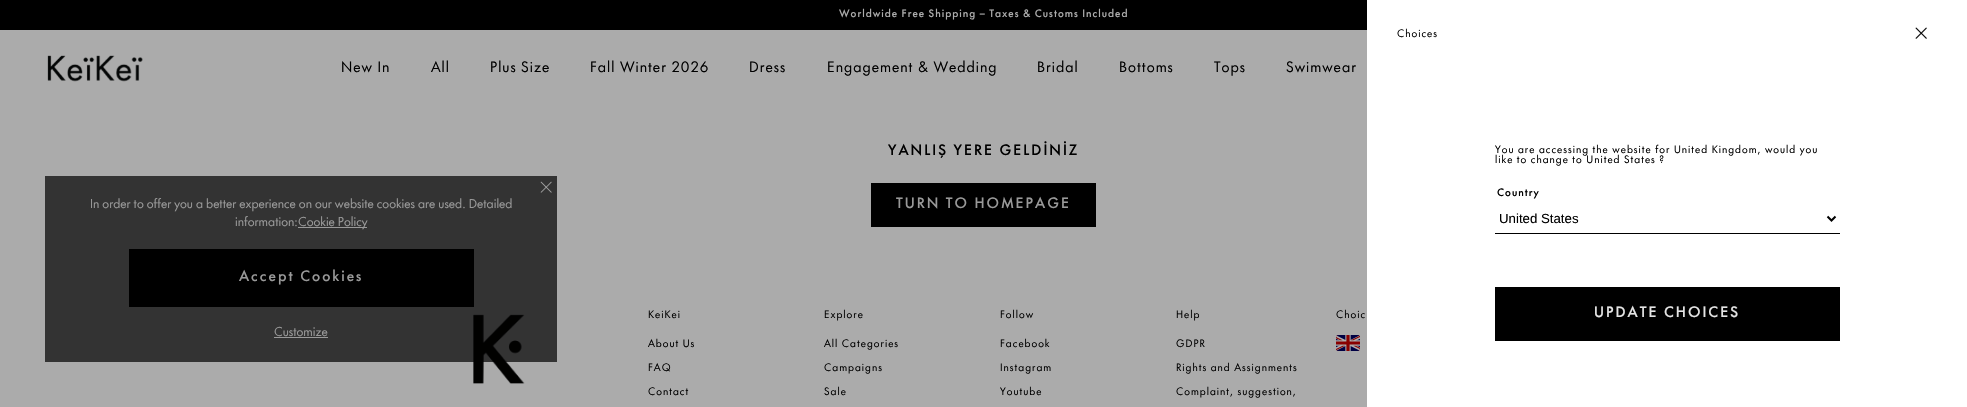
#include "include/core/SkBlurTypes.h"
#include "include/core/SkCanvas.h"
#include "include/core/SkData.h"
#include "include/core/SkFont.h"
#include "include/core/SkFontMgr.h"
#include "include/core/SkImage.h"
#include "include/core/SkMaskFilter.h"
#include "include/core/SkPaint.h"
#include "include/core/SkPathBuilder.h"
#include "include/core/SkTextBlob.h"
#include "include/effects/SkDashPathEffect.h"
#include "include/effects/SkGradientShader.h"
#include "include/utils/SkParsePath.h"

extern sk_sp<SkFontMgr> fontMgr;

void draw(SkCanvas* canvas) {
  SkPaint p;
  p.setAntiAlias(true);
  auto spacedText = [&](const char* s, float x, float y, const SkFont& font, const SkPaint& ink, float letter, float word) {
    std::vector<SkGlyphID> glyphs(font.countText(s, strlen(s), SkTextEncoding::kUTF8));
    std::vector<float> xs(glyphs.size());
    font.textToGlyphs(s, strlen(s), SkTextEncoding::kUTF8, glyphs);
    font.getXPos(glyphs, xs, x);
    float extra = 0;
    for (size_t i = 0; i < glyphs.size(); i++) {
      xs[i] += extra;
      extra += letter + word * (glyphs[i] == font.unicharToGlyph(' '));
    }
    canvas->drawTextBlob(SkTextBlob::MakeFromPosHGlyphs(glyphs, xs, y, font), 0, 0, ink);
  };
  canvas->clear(SkColorSetRGB(171, 171, 171));
  p.setColor(SK_ColorBLACK);
  canvas->drawRect(SkRect::MakeLTRB(0, 0, 1367, 30), p);
  canvas->drawImageRect(SkImages::DeferredFromEncodedData(SkData::MakeFromFileName("images/1.png")), SkRect::MakeLTRB(47, 55, 143, 82), SkSamplingOptions());
  canvas->drawRect(SkRect::MakeLTRB(871, 183, 1096, 227), p);
  canvas->drawImageRect(SkImages::DeferredFromEncodedData(SkData::MakeFromFileName("images/3.png")), SkRect::MakeLTRB(473, 314, 525, 384), SkSamplingOptions());
  p.setColor(SkColorSetARGB(179, 0, 0, 0));
  canvas->drawRect(SkRect::MakeLTRB(45, 176, 557, 362), p);
  canvas->drawImageRect(SkImages::DeferredFromEncodedData(SkData::MakeFromFileName("images/2.png")), SkRect::MakeLTRB(540, 181, 552, 193), SkSamplingOptions());
  p.setColor(SkColorSetRGB(153, 153, 153));
  canvas->drawRect(SkRect::MakeLTRB(298, 227, 367, 228), p);
  p.setColor(SK_ColorBLACK);
  canvas->drawRect(SkRect::MakeLTRB(129, 249, 474, 307), p);
  p.setColor(SkColorSetRGB(153, 153, 153));
  canvas->drawRect(SkRect::MakeLTRB(274, 337, 328, 338), p);
  canvas->drawImageRect(SkImages::DeferredFromEncodedData(SkData::MakeFromFileName("images/4.png")), SkRect::MakeLTRB(1336, 335, 1360, 351), SkSamplingOptions());
  p.setColor(SK_ColorWHITE);
  canvas->drawRect(SkRect::MakeLTRB(1367, 0, 1967, 407), p);
  canvas->drawImageRect(SkImages::DeferredFromEncodedData(SkData::MakeFromFileName("images/5.png")), SkRect::MakeLTRB(1915, 27, 1927, 39), SkSamplingOptions());
  p.setColor(SK_ColorBLACK);
  canvas->drawRect(SkRect::MakeLTRB(1495, 233, 1840, 234), p);
  p.setStyle(SkPaint::kStroke_Style);
  p.setStrokeWidth(2);
  canvas->drawPath(SkPathBuilder().moveTo(1827.5f, 216.5f).lineTo(1831.5f, 220.5f).lineTo(1835.5f, 216.5f).detach(), p);
  p.setStyle(SkPaint::kFill_Style);
  canvas->drawRect(SkRect::MakeLTRB(1495, 287, 1840, 341), p);
  SkFont font1(fontMgr->matchFamilyStyle("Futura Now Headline", SkFontStyle(500, SkFontStyle::kNormal_Width, SkFontStyle::kUpright_Slant)), 10);
  font1.setSubpixel(true);
  p.setColor(SkColorSetRGB(171, 171, 171));
  spacedText("Worldwide Free Shipping – Taxes & Customs Included", 839, 17, font1, p, 1, 0);
  SkFont font2(fontMgr->matchFamilyStyle("Futura Now Headline", SkFontStyle::Normal()), 14);
  font2.setSubpixel(true);
  p.setColor(SK_ColorBLACK);
  spacedText("New In", 341, 72, font2, p, 1, 0);
  spacedText("All", 431, 72, font2, p, 1, 0);
  spacedText("Plus Size", 490, 72, font2, p, 1, 0);
  spacedText("Fall Winter 2026", 590, 72, font2, p, 1, 0);
  spacedText("Dress", 749, 72, font2, p, 1, 0);
  spacedText("Engagement & Wedding", 827, 72, font2, p, 1, 0);
  spacedText("Bridal", 1037, 72, font2, p, 1, 0);
  spacedText("Bottoms", 1119, 72, font2, p, 1, 0);
  spacedText("Tops", 1214, 72, font2, p, 1, 0);
  spacedText("Swimwear", 1286, 72, font2, p, 1, 0);
  SkFont font3(fontMgr->matchFamilyStyle("Futura Now Headline", SkFontStyle(500, SkFontStyle::kNormal_Width, SkFontStyle::kUpright_Slant)), 14);
  font3.setSubpixel(true);
  spacedText("YANLIŞ YERE GELDİNİZ", 888, 155, font3, p, 2, 0);
  p.setColor(SkColorSetRGB(153, 153, 153));
  spacedText("TURN TO HOMEPAGE", 896, 208, font3, p, 2, 0);
  SkFont font4(fontMgr->matchFamilyStyle("Futura Now Headline", SkFontStyle::Normal()), 12);
  font4.setSubpixel(true);
  canvas->drawString("In order to offer you a better experience on our website cookies are used. Detailed", 90, 208, font4, p);
  canvas->drawString("information:", 235, 226, font4, p);
  canvas->drawString("Cookie Policy", 298, 226, font4, p);
  spacedText("Accept Cookies", 239, 281, font3, p, 2, 0);
  canvas->drawString("Customize", 274, 336, font4, p);
  SkFont font5(fontMgr->matchFamilyStyle("Futura Now Headline", SkFontStyle::Normal()), 10);
  font5.setSubpixel(true);
  p.setColor(SK_ColorBLACK);
  spacedText("KeiKei", 648, 318, font5, p, 1, 0);
  spacedText("About Us", 648, 347, font5, p, 1, 0);
  spacedText("FAQ", 648, 371, font5, p, 1, 0);
  spacedText("Contact", 648, 395, font5, p, 1, 0);
  spacedText("Explore", 824, 318, font5, p, 1, 0);
  spacedText("All Categories", 824, 347, font5, p, 1, 0);
  spacedText("Campaigns", 824, 371, font5, p, 1, 0);
  spacedText("Sale", 824, 395, font5, p, 1, 0);
  spacedText("Follow", 1000, 318, font5, p, 1, 0);
  spacedText("Facebook", 1000, 347, font5, p, 1, 0);
  spacedText("Instagram", 1000, 371, font5, p, 1, 0);
  spacedText("Youtube", 1000, 395, font5, p, 1, 0);
  spacedText("Help", 1176, 318, font5, p, 1, 0);
  spacedText("GDPR", 1176, 347, font5, p, 1, 0);
  spacedText("Rights and Assignments", 1176, 371, font5, p, 1, 0);
  spacedText("Complaint, suggestion,", 1176, 395, font5, p, 1, 0);
  spacedText("Choic", 1336, 318, font5, p, 1, 0);
  spacedText("Choices", 1397, 37, font5, p, 1, 0);
  spacedText("You are accessing the website for United Kingdom, would you", 1495, 153, font5, p, 1, 0);
  spacedText("like to change to United States ?", 1495, 163, font5, p, 1, 0);
  spacedText("Country", 1497, 196, font1, p, 1, 0);
  SkFont font6(fontMgr->matchFamilyStyle("Liberation Sans", SkFontStyle::Normal()), 13.25f);
  font6.setSubpixel(true);
  canvas->drawString("United States", 1499, 223, font6, p);
  p.setColor(SkColorSetRGB(228, 228, 228));
  spacedText("UPDATE CHOICES", 1594, 317, font3, p, 2, 0);
}
